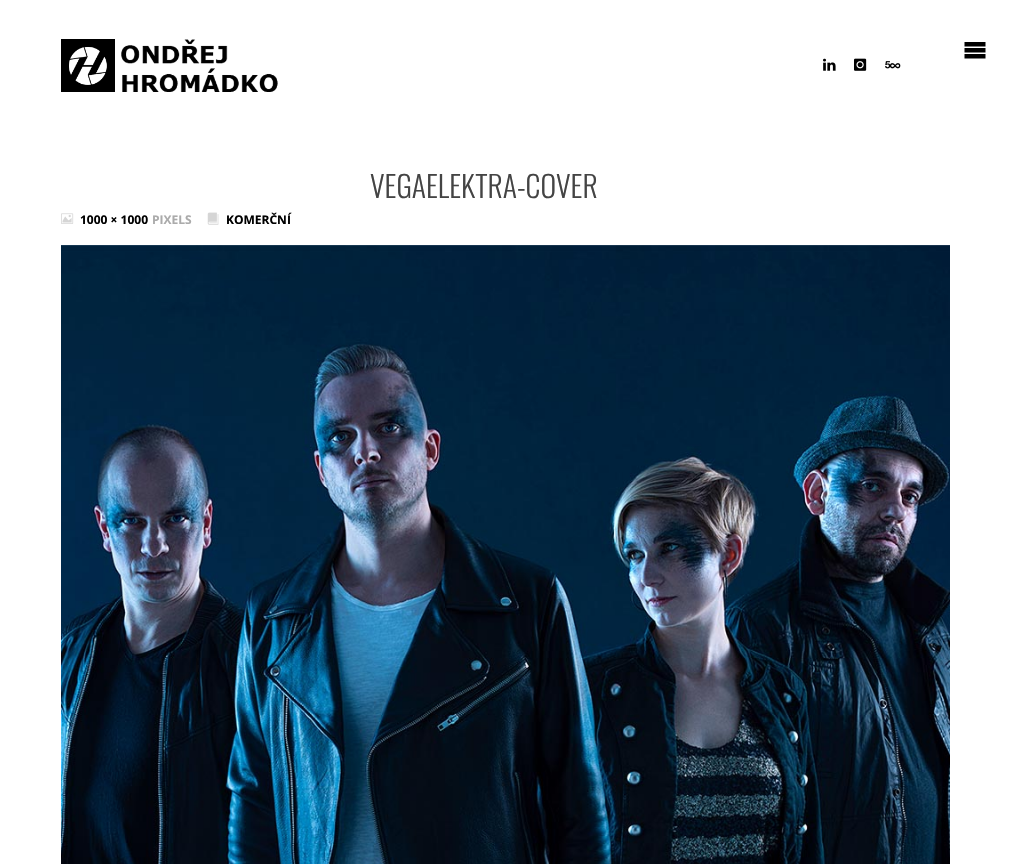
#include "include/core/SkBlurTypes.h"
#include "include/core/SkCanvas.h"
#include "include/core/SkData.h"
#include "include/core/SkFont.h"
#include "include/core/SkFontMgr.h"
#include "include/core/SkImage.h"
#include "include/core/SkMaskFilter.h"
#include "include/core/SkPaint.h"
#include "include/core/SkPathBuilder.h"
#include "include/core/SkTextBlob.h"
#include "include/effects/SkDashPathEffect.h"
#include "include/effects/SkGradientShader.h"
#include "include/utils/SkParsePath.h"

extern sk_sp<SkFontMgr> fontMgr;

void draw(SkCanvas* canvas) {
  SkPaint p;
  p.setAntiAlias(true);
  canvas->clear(SK_ColorWHITE);
  canvas->drawImageRect(SkImages::DeferredFromEncodedData(SkData::MakeFromFileName("images/1.png")), SkRect::MakeLTRB(61, 39, 278, 92), SkSamplingOptions());
  canvas->drawImageRect(SkImages::DeferredFromEncodedData(SkData::MakeFromFileName("images/2.png")), SkRect::MakeLTRB(964, 42, 986, 59), SkSamplingOptions());
  canvas->drawImageRect(SkImages::DeferredFromEncodedData(SkData::MakeFromFileName("images/3.png")), SkRect::MakeLTRB(823, 58, 836, 71), SkSamplingOptions());
  canvas->drawImageRect(SkImages::DeferredFromEncodedData(SkData::MakeFromFileName("images/4.png")), SkRect::MakeLTRB(854, 58, 867, 71), SkSamplingOptions());
  canvas->drawImageRect(SkImages::DeferredFromEncodedData(SkData::MakeFromFileName("images/5.png")), SkRect::MakeLTRB(885, 61, 901, 69), SkSamplingOptions());
  canvas->drawImageRect(SkImages::DeferredFromEncodedData(SkData::MakeFromFileName("images/6.png")), SkRect::MakeLTRB(61, 213, 74, 224), SkSamplingOptions());
  canvas->drawImageRect(SkImages::DeferredFromEncodedData(SkData::MakeFromFileName("images/7.png")), SkRect::MakeLTRB(207, 212, 219, 225), SkSamplingOptions());
  canvas->drawImageRect(SkImages::DeferredFromEncodedData(SkData::MakeFromFileName("images/8.png")), SkRect::MakeLTRB(61, 245, 950, 864), SkSamplingOptions());
  SkFont font1(fontMgr->matchFamilyStyle("Oswald", SkFontStyle(300, SkFontStyle::kNormal_Width, SkFontStyle::kUpright_Slant)), 29.75f);
  font1.setSubpixel(true);
  p.setColor(SkColorSetRGB(68, 68, 68));
  canvas->drawString("VEGAELEKTRA-COVER", 370, 198, font1, p);
  SkFont font2(fontMgr->matchFamilyStyle("Open Sans", SkFontStyle::Bold()), 12);
  font2.setSubpixel(true);
  p.setColor(SK_ColorBLACK);
  canvas->drawString("1000 × 1000", 80, 224, font2, p);
  p.setColor(SkColorSetRGB(171, 171, 171));
  canvas->drawString("PIXELS", 152, 224, font2, p);
  p.setColor(SK_ColorBLACK);
  canvas->drawString("KOMERČNÍ", 226, 224, font2, p);
}
